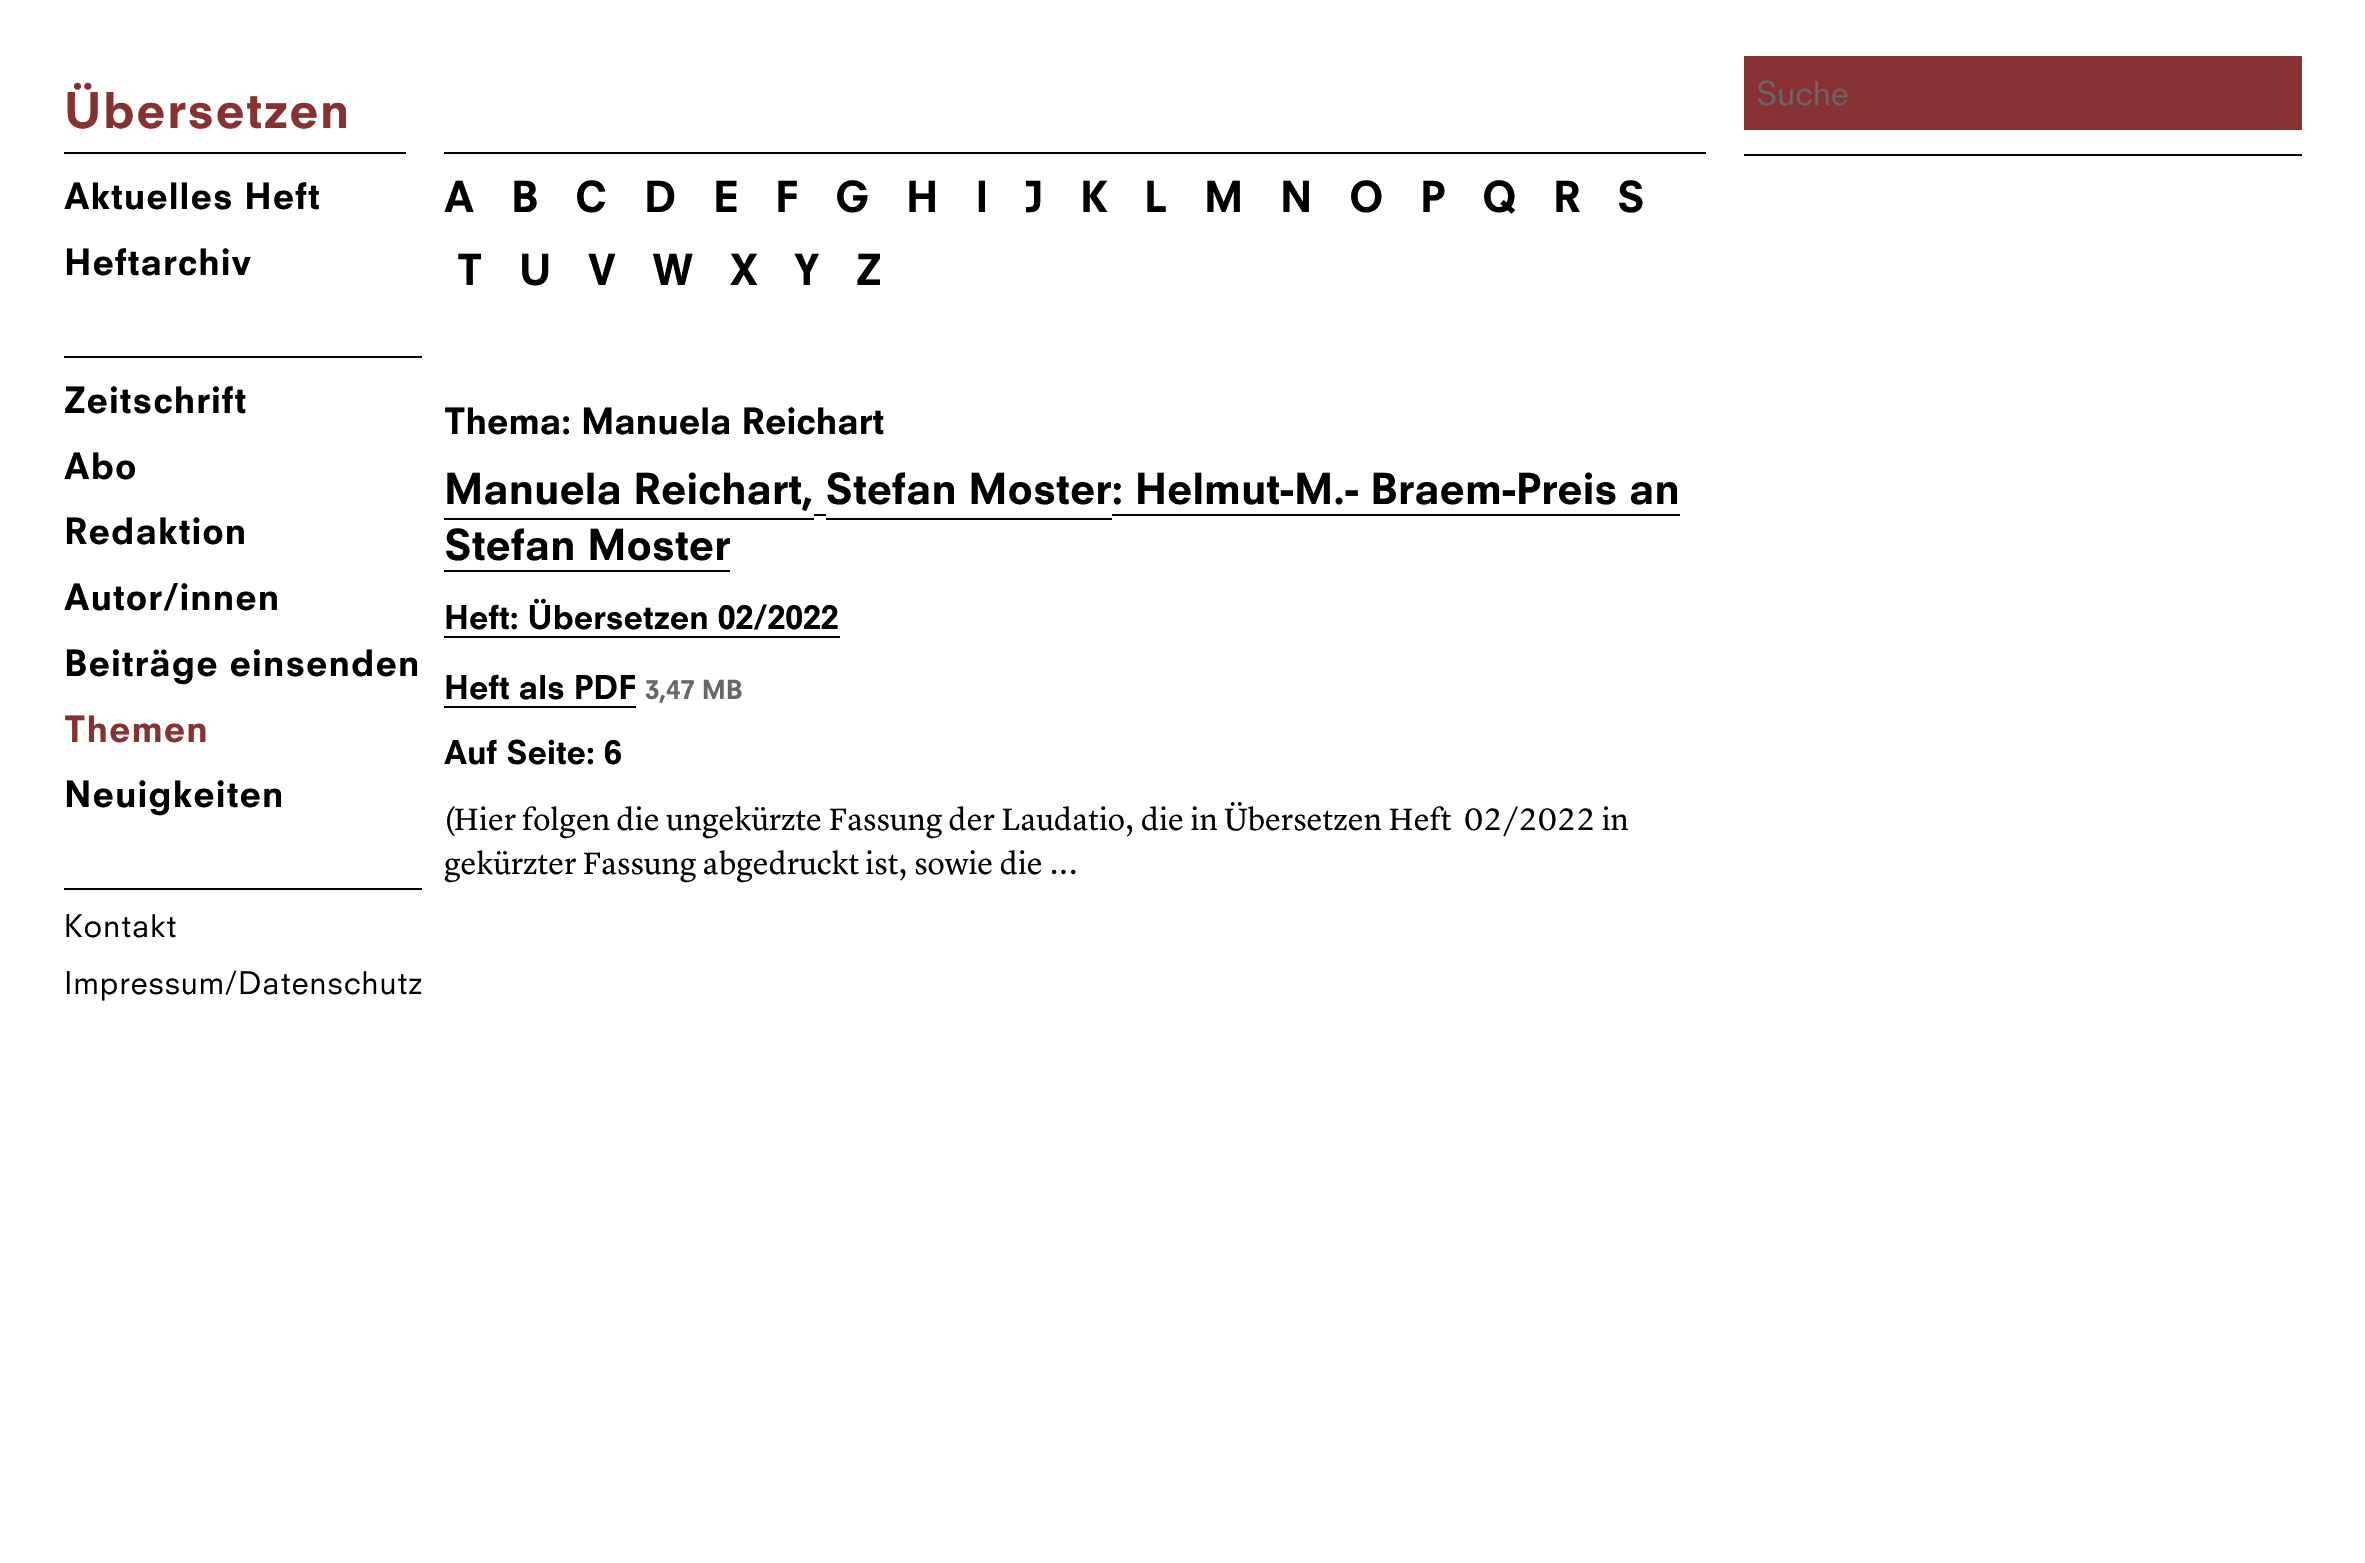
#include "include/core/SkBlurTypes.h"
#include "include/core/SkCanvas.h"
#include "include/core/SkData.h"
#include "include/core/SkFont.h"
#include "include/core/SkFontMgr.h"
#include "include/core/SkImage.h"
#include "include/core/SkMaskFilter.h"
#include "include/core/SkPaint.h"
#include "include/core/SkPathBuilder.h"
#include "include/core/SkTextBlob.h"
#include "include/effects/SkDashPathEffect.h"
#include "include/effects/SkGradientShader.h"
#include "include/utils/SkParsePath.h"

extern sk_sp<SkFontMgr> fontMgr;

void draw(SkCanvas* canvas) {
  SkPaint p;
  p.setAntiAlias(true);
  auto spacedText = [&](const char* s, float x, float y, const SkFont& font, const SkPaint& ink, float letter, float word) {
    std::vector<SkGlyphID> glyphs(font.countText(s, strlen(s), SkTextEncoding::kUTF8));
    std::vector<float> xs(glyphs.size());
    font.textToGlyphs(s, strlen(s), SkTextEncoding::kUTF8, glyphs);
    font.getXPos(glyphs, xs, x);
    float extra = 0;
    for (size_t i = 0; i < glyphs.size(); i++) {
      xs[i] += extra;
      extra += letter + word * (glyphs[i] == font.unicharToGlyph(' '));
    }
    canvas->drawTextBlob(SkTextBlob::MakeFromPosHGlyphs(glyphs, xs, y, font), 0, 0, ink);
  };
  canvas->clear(SK_ColorWHITE);
  p.setColor(SK_ColorBLACK);
  canvas->drawRect(SkRect::MakeLTRB(64, 152, 406, 154), p);
  canvas->drawRect(SkRect::MakeLTRB(64, 356, 422, 358), p);
  canvas->drawRect(SkRect::MakeLTRB(64, 888, 422, 890), p);
  canvas->drawRect(SkRect::MakeLTRB(1744, 154, 2302, 156), p);
  p.setColor(SkColorSetRGB(136, 49, 50));
  canvas->drawRect(SkRect::MakeLTRB(1744, 56, 2302, 130), p);
  p.setColor(SK_ColorBLACK);
  canvas->drawRect(SkRect::MakeLTRB(444, 152, 1706, 154), p);
  canvas->drawRect(SkRect::MakeLTRB(444, 518, 814, 520), p);
  canvas->drawRect(SkRect::MakeLTRB(814, 514, 826, 516), p);
  canvas->drawRect(SkRect::MakeLTRB(826, 518, 1112, 520), p);
  canvas->drawRect(SkRect::MakeLTRB(1112, 514, 1680, 516), p);
  canvas->drawRect(SkRect::MakeLTRB(444, 570, 730, 572), p);
  canvas->drawRect(SkRect::MakeLTRB(444, 636, 840, 638), p);
  canvas->drawRect(SkRect::MakeLTRB(444, 706, 636, 708), p);
  SkFont font1(fontMgr->matchFamilyStyle("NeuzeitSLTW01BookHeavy", SkFontStyle(900, SkFontStyle::kNormal_Width, SkFontStyle::kUpright_Slant)), 48);
  font1.setSubpixel(true);
  p.setColor(SkColorSetRGB(136, 49, 50));
  spacedText("Übersetzen", 64, 128, font1, p, 1.5f, 0);
  SkFont font2(fontMgr->matchFamilyStyle("NeuzeitSLTW01BookHeavy", SkFontStyle(900, SkFontStyle::kNormal_Width, SkFontStyle::kUpright_Slant)), 35.25f);
  font2.setSubpixel(true);
  p.setColor(SK_ColorBLACK);
  spacedText("Aktuelles Heft", 64, 209, font2, p, 1, 0);
  spacedText("Heftarchiv", 64, 275, font2, p, 1, 0);
  spacedText("Zeitschrift", 64, 413, font2, p, 1, 0);
  spacedText("Abo", 64, 479, font2, p, 1, 0);
  spacedText("Redaktion", 64, 544, font2, p, 1, 0);
  spacedText("Autor/innen", 64, 610, font2, p, 1, 0);
  spacedText("Beiträge einsenden", 64, 676, font2, p, 1, 0);
  p.setColor(SkColorSetRGB(136, 49, 50));
  spacedText("Themen", 64, 742, font2, p, 1, 0);
  p.setColor(SK_ColorBLACK);
  spacedText("Neuigkeiten", 64, 807, font2, p, 1, 0);
  SkFont font3(fontMgr->matchFamilyStyle("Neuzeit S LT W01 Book", SkFontStyle::Normal()), 30.4f);
  font3.setSubpixel(true);
  spacedText("Kontakt", 64, 937, font3, p, 1, 0);
  spacedText("Impressum/Datenschutz", 64, 994, font3, p, 1, 0);
  SkFont font4(fontMgr->matchFamilyStyle("Neuzeit S LT W01 Book", SkFontStyle::Normal()), 32);
  font4.setSubpixel(true);
  p.setColor(SkColorSetRGB(104, 104, 104));
  canvas->drawString("Suche", 1756, 105, font4, p);
  SkFont font5(fontMgr->matchFamilyStyle("NeuzeitSLTW01BookHeavy", SkFontStyle(900, SkFontStyle::kNormal_Width, SkFontStyle::kUpright_Slant)), 41.6f);
  font5.setSubpixel(true);
  p.setColor(SK_ColorBLACK);
  canvas->drawString("A", 444, 212, font5, p);
  canvas->drawString("B", 511, 212, font5, p);
  canvas->drawString("C", 575, 212, font5, p);
  canvas->drawString("D", 644, 212, font5, p);
  canvas->drawString("E", 713, 212, font5, p);
  canvas->drawString("F", 775, 212, font5, p);
  canvas->drawString("G", 835, 212, font5, p);
  canvas->drawString("H", 906, 212, font5, p);
  canvas->drawString("I", 975, 212, font5, p);
  canvas->drawString("J", 1025, 212, font5, p);
  canvas->drawString("K", 1080, 212, font5, p);
  canvas->drawString("L", 1144, 212, font5, p);
  canvas->drawString("M", 1204, 212, font5, p);
  canvas->drawString("N", 1280, 212, font5, p);
  canvas->drawString("O", 1349, 212, font5, p);
  canvas->drawString("P", 1420, 212, font5, p);
  canvas->drawString("Q", 1482, 212, font5, p);
  canvas->drawString("R", 1553, 212, font5, p);
  canvas->drawString("S", 1617, 212, font5, p);
  canvas->drawString("T", 457, 285, font5, p);
  canvas->drawString("U", 519, 285, font5, p);
  canvas->drawString("V", 588, 285, font5, p);
  canvas->drawString("W", 652, 285, font5, p);
  canvas->drawString("X", 730, 285, font5, p);
  canvas->drawString("Y", 794, 285, font5, p);
  canvas->drawString("Z", 856, 285, font5, p);
  canvas->drawString("Thema: Manuela Reichart", 444, 434, font2, p);
  canvas->drawString("Manuela Reichart, Stefan Moster: Helmut-M.- Braem-Preis an", 444, 504, font5, p);
  canvas->drawString("Stefan Moster", 444, 560, font5, p);
  SkFont font6(fontMgr->matchFamilyStyle("NeuzeitSLTW01BookHeavy", SkFontStyle(900, SkFontStyle::kNormal_Width, SkFontStyle::kUpright_Slant)), 32);
  font6.setSubpixel(true);
  canvas->drawString("Heft: Übersetzen 02/2022", 444, 629, font6, p);
  canvas->drawString("Heft als PDF", 444, 699, font6, p);
  SkFont font7(fontMgr->matchFamilyStyle("NeuzeitSLTW01BookHeavy", SkFontStyle(900, SkFontStyle::kNormal_Width, SkFontStyle::kUpright_Slant)), 25.5f);
  font7.setSubpixel(true);
  p.setColor(SkColorSetRGB(104, 104, 104));
  canvas->drawString("3,47 MB", 645, 699, font7, p);
  p.setColor(SK_ColorBLACK);
  canvas->drawString("Auf Seite: 6", 444, 764, font6, p);
  SkFont font8(fontMgr->matchFamilyStyle("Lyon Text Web", SkFontStyle::Normal()), 32);
  font8.setSubpixel(true);
  canvas->drawString("(Hier folgen die ungekürzte Fassung der Laudatio, die in Übersetzen Heft  02/2022 in", 444, 830, font8, p);
  canvas->drawString("gekürzter Fassung abgedruckt ist, sowie die ...", 444, 874, font8, p);
}
